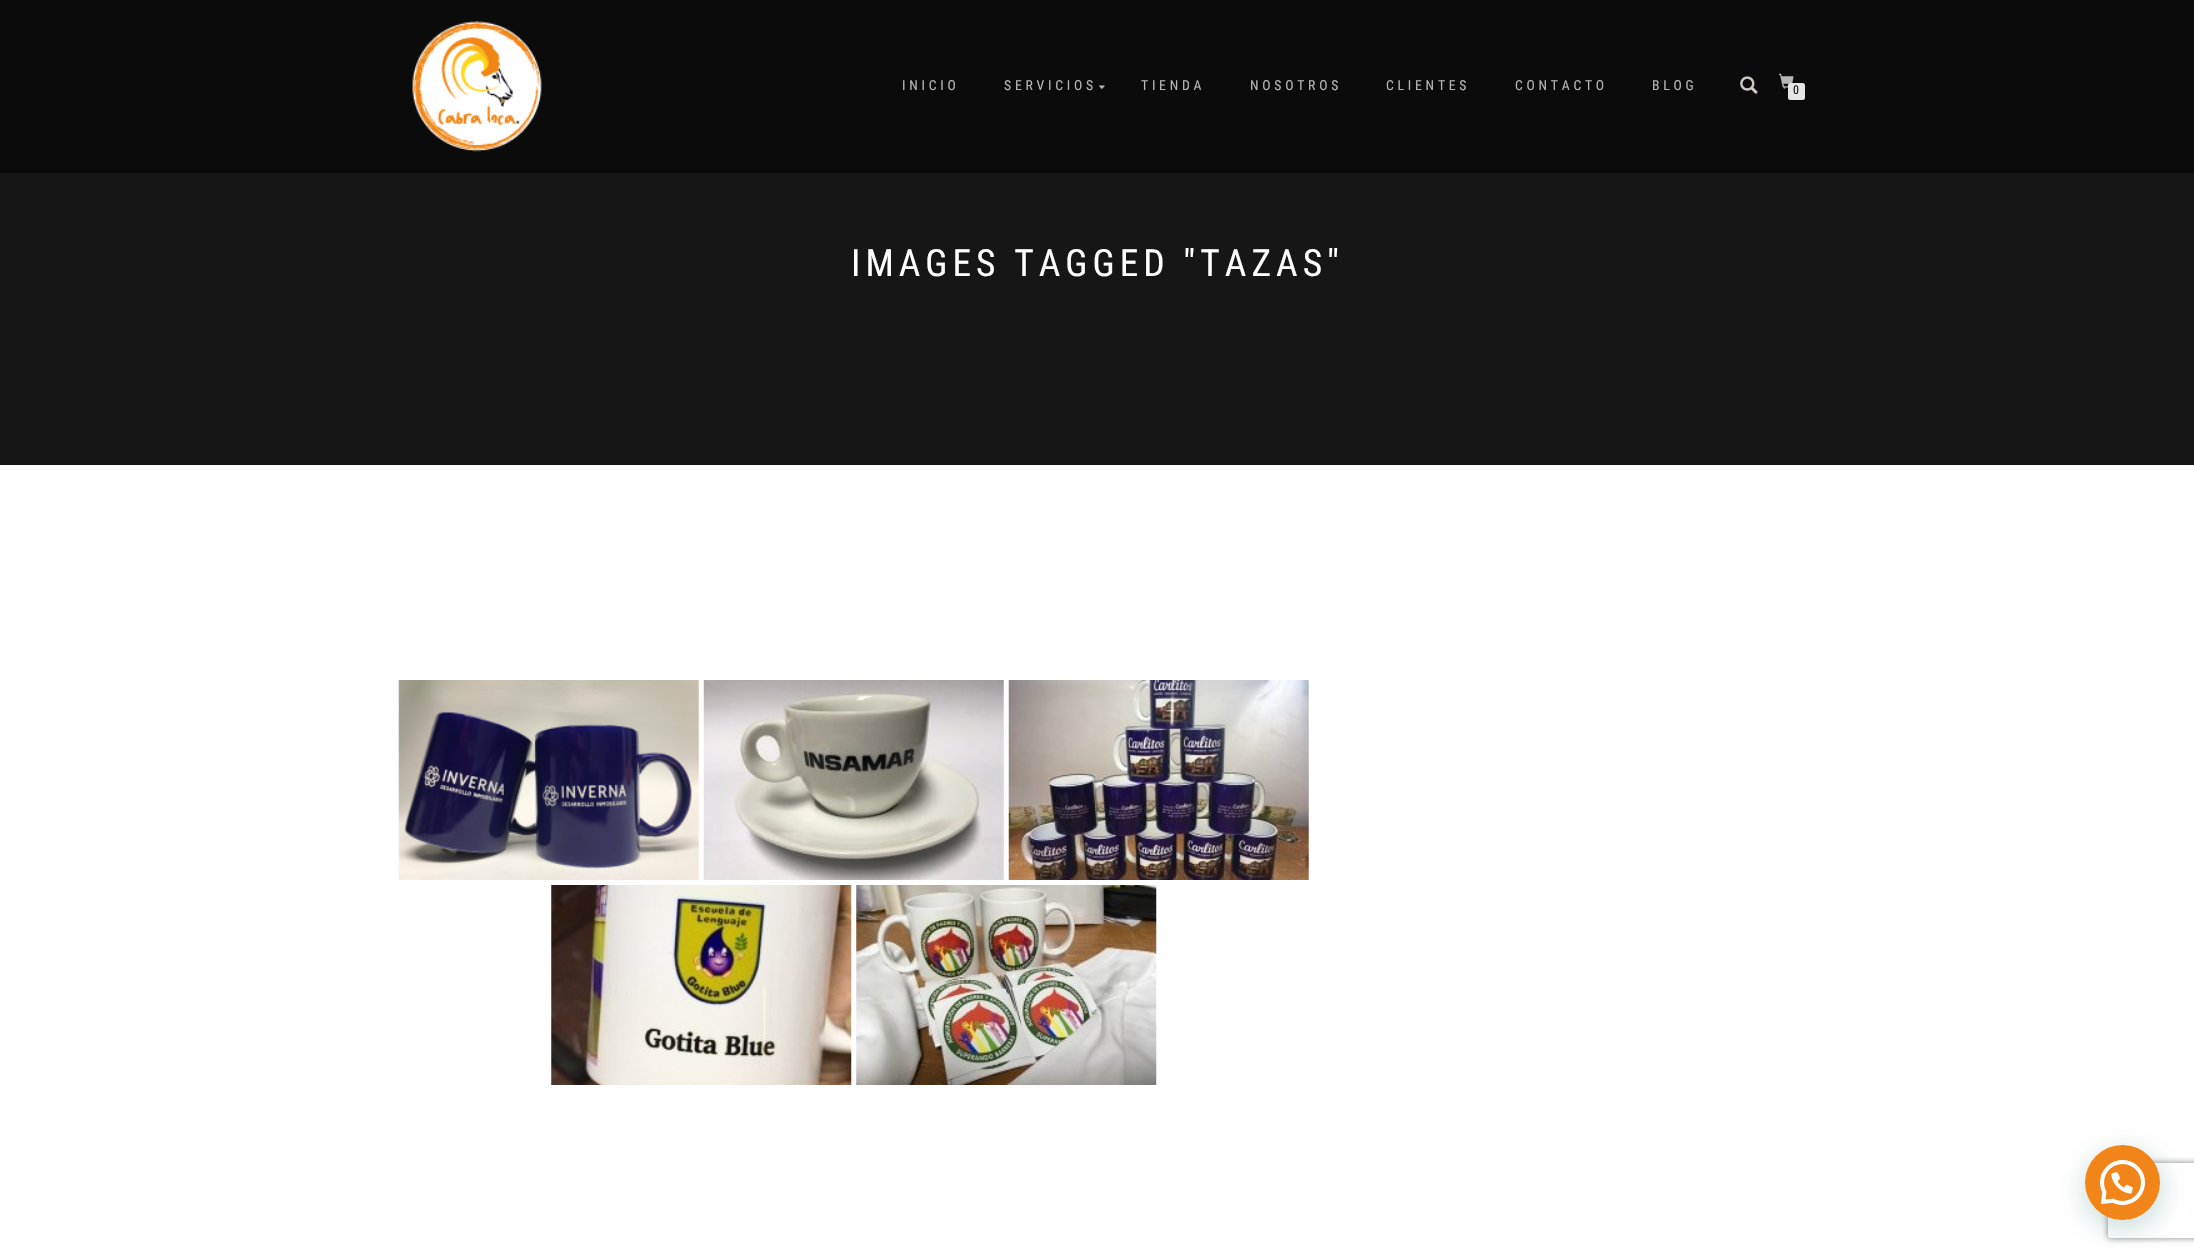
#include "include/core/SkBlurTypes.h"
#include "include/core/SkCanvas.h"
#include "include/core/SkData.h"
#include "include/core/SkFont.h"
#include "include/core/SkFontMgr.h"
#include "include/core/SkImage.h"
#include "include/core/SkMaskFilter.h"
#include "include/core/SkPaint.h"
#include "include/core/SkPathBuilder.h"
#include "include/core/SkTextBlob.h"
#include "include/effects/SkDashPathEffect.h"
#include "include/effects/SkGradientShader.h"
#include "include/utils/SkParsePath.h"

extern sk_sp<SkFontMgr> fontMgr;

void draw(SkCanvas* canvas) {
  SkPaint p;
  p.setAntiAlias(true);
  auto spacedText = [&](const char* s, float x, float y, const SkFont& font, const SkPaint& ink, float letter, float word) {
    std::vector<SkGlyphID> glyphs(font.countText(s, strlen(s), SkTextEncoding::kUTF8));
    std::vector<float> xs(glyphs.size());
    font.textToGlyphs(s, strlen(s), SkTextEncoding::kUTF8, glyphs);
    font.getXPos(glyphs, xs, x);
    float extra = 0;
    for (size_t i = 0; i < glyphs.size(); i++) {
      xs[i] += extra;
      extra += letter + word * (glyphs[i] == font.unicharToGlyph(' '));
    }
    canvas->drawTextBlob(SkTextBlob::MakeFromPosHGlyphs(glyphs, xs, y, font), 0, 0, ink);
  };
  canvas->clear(SK_ColorWHITE);
  p.setColor(SkColorSetRGB(11, 11, 11));
  canvas->drawRect(SkRect::MakeLTRB(0, 0, 2194, 173), p);
  canvas->drawImageRect(SkImages::DeferredFromEncodedData(SkData::MakeFromFileName("images/1.png")), SkRect::MakeLTRB(412, 21, 542, 152), SkSamplingOptions());
  canvas->drawImageRect(SkImages::DeferredFromEncodedData(SkData::MakeFromFileName("images/2.png")), SkRect::MakeLTRB(1099, 85, 1105, 89), SkSamplingOptions());
  canvas->drawImageRect(SkImages::DeferredFromEncodedData(SkData::MakeFromFileName("images/3.png")), SkRect::MakeLTRB(1740, 76, 1758, 94), SkSamplingOptions());
  canvas->drawImageRect(SkImages::DeferredFromEncodedData(SkData::MakeFromFileName("images/4.png")), SkRect::MakeLTRB(1778, 73, 1794, 89), SkSamplingOptions());
  p.setColor(SkColorSetRGB(229, 229, 229));
  canvas->drawRoundRect(SkRect::MakeLTRB(1788, 83, 1805, 100), 2.5f, 2.5f, p);
  p.setColor(SkColorSetRGB(22, 22, 22));
  canvas->drawRect(SkRect::MakeLTRB(0, 173, 2194, 465), p);
  canvas->drawImageRect(SkImages::DeferredFromEncodedData(SkData::MakeFromFileName("images/5.png")), SkRect::MakeLTRB(398, 680, 699, 880), SkSamplingOptions());
  canvas->drawImageRect(SkImages::DeferredFromEncodedData(SkData::MakeFromFileName("images/6.png")), SkRect::MakeLTRB(703, 680, 1004, 880), SkSamplingOptions());
  canvas->drawImageRect(SkImages::DeferredFromEncodedData(SkData::MakeFromFileName("images/7.png")), SkRect::MakeLTRB(1008, 680, 1309, 880), SkSamplingOptions());
  canvas->drawImageRect(SkImages::DeferredFromEncodedData(SkData::MakeFromFileName("images/8.png")), SkRect::MakeLTRB(551, 885, 852, 1085), SkSamplingOptions());
  canvas->drawImageRect(SkImages::DeferredFromEncodedData(SkData::MakeFromFileName("images/9.png")), SkRect::MakeLTRB(856, 885, 1157, 1085), SkSamplingOptions());
  p.setColor(SkColorSetARGB(61, 7, 94, 84));
  p.setMaskFilter(SkMaskFilter::MakeBlur(kNormal_SkBlurStyle, 15));
  canvas->drawRoundRect(SkRect::MakeLTRB(2086, 1153, 2161, 1228), 37.5f, 37.5f, p);
  p.setMaskFilter(nullptr);
  canvas->save();
  canvas->clipPath(SkPathBuilder(SkPathFillType::kEvenOdd).moveTo(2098, 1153).lineTo(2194, 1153).lineTo(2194, 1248).lineTo(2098, 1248).close().moveTo(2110.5f, 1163).lineTo(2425.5f, 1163).cubicTo(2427, 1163, 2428, 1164, 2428, 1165.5f).lineTo(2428, 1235.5f).cubicTo(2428, 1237, 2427, 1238, 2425.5f, 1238).lineTo(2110.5f, 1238).cubicTo(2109, 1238, 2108, 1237, 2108, 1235.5f).lineTo(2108, 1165.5f).cubicTo(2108, 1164, 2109, 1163, 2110.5f, 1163).close().detach(), true);
  p.setColor(SkColorSetRGB(128, 128, 128));
  p.setMaskFilter(SkMaskFilter::MakeBlur(kNormal_SkBlurStyle, 3));
  canvas->drawRoundRect(SkRect::MakeLTRB(2108, 1163, 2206, 1238), 2.5f, 2.5f, p);
  p.setMaskFilter(nullptr);
  canvas->restore();
  p.setColor(SkColorSetRGB(241, 133, 25));
  canvas->drawCircle(2122.5f, 1182.5f, 37.5f, p);
  canvas->drawImageRect(SkImages::DeferredFromEncodedData(SkData::MakeFromFileName("images/10.png")), SkRect::MakeLTRB(2100, 1160, 2145, 1205), SkSamplingOptions());
  SkFont font1(fontMgr->matchFamilyStyle("Roboto Condensed", SkFontStyle::Normal()), 13.75f);
  font1.setSubpixel(true);
  p.setColor(SkColorSetRGB(182, 182, 182));
  spacedText("INICIO", 902, 90, font1, p, 3.75f, 0);
  spacedText("SERVICIOS", 1004, 90, font1, p, 3.75f, 0);
  spacedText("TIENDA", 1141, 90, font1, p, 3.75f, 0);
  spacedText("NOSOTROS", 1250, 90, font1, p, 3.75f, 0);
  spacedText("CLIENTES", 1386, 90, font1, p, 3.75f, 0);
  spacedText("CONTACTO", 1515, 90, font1, p, 3.75f, 0);
  spacedText("BLOG", 1652, 90, font1, p, 3.75f, 0);
  SkFont font2(fontMgr->matchFamilyStyle("Roboto Condensed", SkFontStyle::Normal()), 12);
  font2.setSubpixel(true);
  p.setColor(SkColorSetRGB(17, 17, 17));
  canvas->drawString("0", 1793, 94, font2, p);
  SkFont font3(fontMgr->matchFamilyStyle("Roboto Condensed", SkFontStyle::Normal()), 37.5f);
  font3.setSubpixel(true);
  p.setColor(SK_ColorWHITE);
  spacedText("IMAGES TAGGED \"TAZAS\"", 851, 276, font3, p, 5, 0);
}
